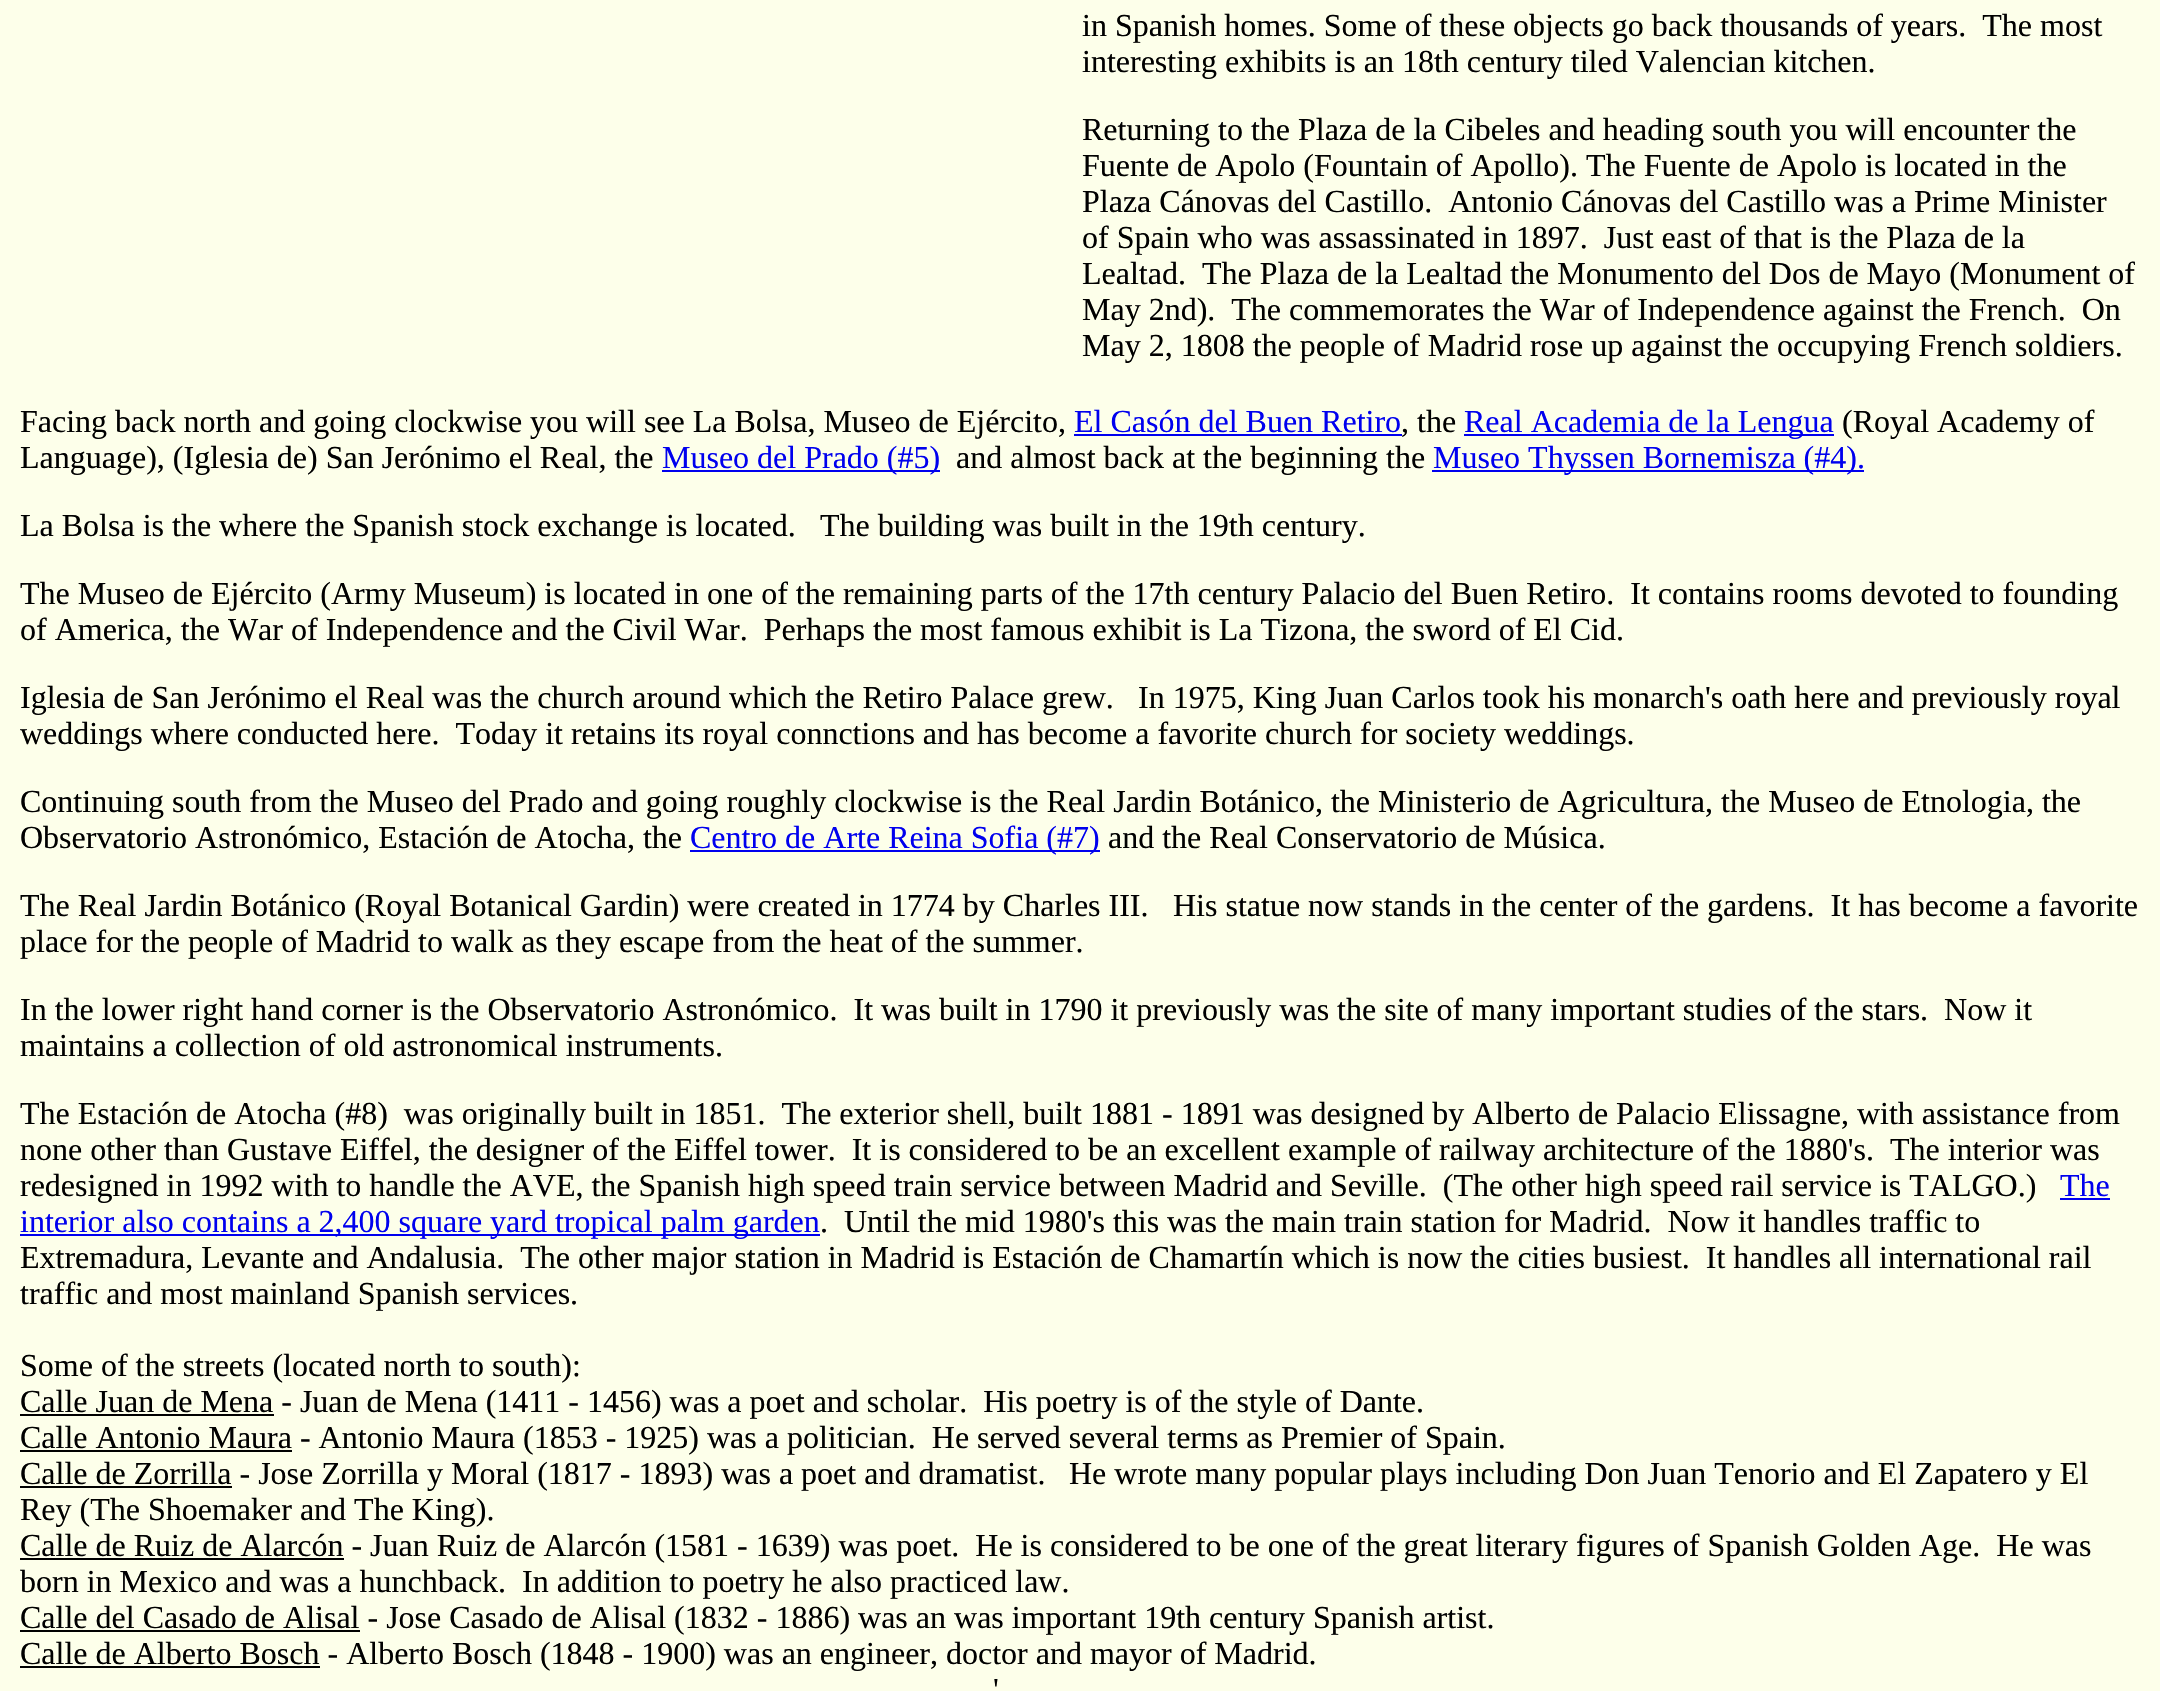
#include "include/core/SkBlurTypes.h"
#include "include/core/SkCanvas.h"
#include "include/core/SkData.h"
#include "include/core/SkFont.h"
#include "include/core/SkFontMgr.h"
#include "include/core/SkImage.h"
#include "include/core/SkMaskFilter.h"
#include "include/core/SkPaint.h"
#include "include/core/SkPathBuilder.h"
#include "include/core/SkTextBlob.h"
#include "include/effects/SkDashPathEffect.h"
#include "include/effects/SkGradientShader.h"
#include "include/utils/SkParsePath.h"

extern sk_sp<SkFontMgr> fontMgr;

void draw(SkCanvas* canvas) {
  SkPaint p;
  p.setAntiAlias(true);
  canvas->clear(SkColorSetRGB(253, 255, 234));
  p.setColor(SkColorSetRGB(0, 0, 238));
  canvas->drawRect(SkRect::MakeLTRB(1074, 434, 1402, 436), p);
  canvas->drawRect(SkRect::MakeLTRB(1464, 434, 1834, 436), p);
  canvas->drawRect(SkRect::MakeLTRB(662, 470, 940, 472), p);
  canvas->drawRect(SkRect::MakeLTRB(1432, 470, 1864, 472), p);
  canvas->drawRect(SkRect::MakeLTRB(690, 850, 1100, 852), p);
  canvas->drawRect(SkRect::MakeLTRB(2060, 1198, 2110, 1200), p);
  canvas->drawRect(SkRect::MakeLTRB(20, 1234, 820, 1236), p);
  p.setColor(SK_ColorBLACK);
  canvas->drawRect(SkRect::MakeLTRB(20, 1414, 274, 1416), p);
  canvas->drawRect(SkRect::MakeLTRB(20, 1450, 292, 1452), p);
  canvas->drawRect(SkRect::MakeLTRB(20, 1486, 232, 1488), p);
  canvas->drawRect(SkRect::MakeLTRB(20, 1558, 344, 1560), p);
  canvas->drawRect(SkRect::MakeLTRB(20, 1630, 360, 1632), p);
  canvas->drawRect(SkRect::MakeLTRB(20, 1666, 320, 1668), p);
  SkFont font1(fontMgr->matchFamilyStyle("Liberation Serif", SkFontStyle::Normal()), 32);
  font1.setSubpixel(true);
  canvas->drawString("in Spanish homes. Some of these objects go back thousands of years.  The most", 1082, 36, font1, p);
  canvas->drawString("interesting exhibits is an 18th century tiled Valencian kitchen.", 1082, 72, font1, p);
  canvas->drawString("Returning to the Plaza de la Cibeles and heading south you will encounter the", 1082, 140, font1, p);
  canvas->drawString("Fuente de Apolo (Fountain of Apollo). The Fuente de Apolo is located in the", 1082, 176, font1, p);
  canvas->drawString("Plaza Cánovas del Castillo.  Antonio Cánovas del Castillo was a Prime Minister", 1082, 212, font1, p);
  canvas->drawString("of Spain who was assassinated in 1897.  Just east of that is the Plaza de la", 1082, 248, font1, p);
  canvas->drawString("Lealtad.  The Plaza de la Lealtad the Monumento del Dos de Mayo (Monument of", 1082, 284, font1, p);
  canvas->drawString("May 2nd).  The commemorates the War of Independence against the French.  On", 1082, 320, font1, p);
  canvas->drawString("May 2, 1808 the people of Madrid rose up against the occupying French soldiers.", 1082, 356, font1, p);
  canvas->drawString("Facing back north and going clockwise you will see La Bolsa, Museo de Ejército,", 20, 432, font1, p);
  p.setColor(SkColorSetRGB(0, 0, 238));
  canvas->drawString("El Casón del Buen Retiro", 1074, 432, font1, p);
  p.setColor(SK_ColorBLACK);
  canvas->drawString(", the", 1401, 432, font1, p);
  p.setColor(SkColorSetRGB(0, 0, 238));
  canvas->drawString("Real Academia de la Lengua", 1464, 432, font1, p);
  p.setColor(SK_ColorBLACK);
  canvas->drawString("(Royal Academy of", 1842, 432, font1, p);
  canvas->drawString("Language), (Iglesia de) San Jerónimo el Real, the", 20, 468, font1, p);
  p.setColor(SkColorSetRGB(0, 0, 238));
  canvas->drawString("Museo del Prado (#5)", 662, 468, font1, p);
  p.setColor(SK_ColorBLACK);
  canvas->drawString("and almost back at the beginning the", 956, 468, font1, p);
  p.setColor(SkColorSetRGB(0, 0, 238));
  canvas->drawString("Museo Thyssen Bornemisza (#4).", 1433, 468, font1, p);
  p.setColor(SK_ColorBLACK);
  canvas->drawString("La Bolsa is the where the Spanish stock exchange is located.", 20, 536, font1, p);
  canvas->drawString("The building was built in the 19th century.", 820, 536, font1, p);
  canvas->drawString("The Museo de Ejército (Army Museum) is located in one of the remaining parts of the 17th century Palacio del Buen Retiro.  It contains rooms devoted to founding", 20, 604, font1, p);
  canvas->drawString("of America, the War of Independence and the Civil War.  Perhaps the most famous exhibit is La Tizona, the sword of El Cid.", 20, 640, font1, p);
  canvas->drawString("Iglesia de San Jerónimo el Real was the church around which the Retiro Palace grew.", 20, 708, font1, p);
  canvas->drawString("In 1975, King Juan Carlos took his monarch's oath here and previously royal", 1138, 708, font1, p);
  canvas->drawString("weddings where conducted here.  Today it retains its royal connctions and has become a favorite church for society weddings.", 20, 744, font1, p);
  canvas->drawString("Continuing south from the Museo del Prado and going roughly clockwise is the Real Jardin Botánico, the Ministerio de Agricultura, the Museo de Etnologia, the", 20, 812, font1, p);
  canvas->drawString("Observatorio Astronómico, Estación de Atocha, the", 20, 848, font1, p);
  p.setColor(SkColorSetRGB(0, 0, 238));
  canvas->drawString("Centro de Arte Reina Sofia (#7)", 690, 848, font1, p);
  p.setColor(SK_ColorBLACK);
  canvas->drawString("and the Real Conservatorio de Música.", 1108, 848, font1, p);
  canvas->drawString("The Real Jardin Botánico (Royal Botanical Gardin) were created in 1774 by Charles III.", 20, 916, font1, p);
  canvas->drawString("His statue now stands in the center of the gardens.  It has become a favorite", 1173, 916, font1, p);
  canvas->drawString("place for the people of Madrid to walk as they escape from the heat of the summer.", 20, 952, font1, p);
  canvas->drawString("In the lower right hand corner is the Observatorio Astronómico.  It was built in 1790 it previously was the site of many important studies of the stars.  Now it", 20, 1020, font1, p);
  canvas->drawString("maintains a collection of old astronomical instruments.", 20, 1056, font1, p);
  canvas->drawString("The Estación de Atocha (#8)  was originally built in 1851.  The exterior shell, built 1881 - 1891 was designed by Alberto de Palacio Elissagne, with assistance from", 20, 1124, font1, p);
  canvas->drawString("none other than Gustave Eiffel, the designer of the Eiffel tower.  It is considered to be an excellent example of railway architecture of the 1880's.  The interior was", 20, 1160, font1, p);
  canvas->drawString("redesigned in 1992 with to handle the AVE, the Spanish high speed train service between Madrid and Seville.  (The other high speed rail service is TALGO.)", 20, 1196, font1, p);
  p.setColor(SkColorSetRGB(0, 0, 238));
  canvas->drawString("The", 2060, 1196, font1, p);
  canvas->drawString("interior also contains a 2,400 square yard tropical palm garden", 20, 1232, font1, p);
  p.setColor(SK_ColorBLACK);
  canvas->drawString(".  Until the mid 1980's this was the main train station for Madrid.  Now it handles traffic to", 820, 1232, font1, p);
  canvas->drawString("Extremadura, Levante and Andalusia.  The other major station in Madrid is Estación de Chamartín which is now the cities busiest.  It handles all international rail", 20, 1268, font1, p);
  canvas->drawString("traffic and most mainland Spanish services.", 20, 1304, font1, p);
  canvas->drawString("Some of the streets (located north to south):", 20, 1376, font1, p);
  canvas->drawString("Calle Juan de Mena - Juan de Mena (1411 - 1456) was a poet and scholar.  His poetry is of the style of Dante.", 20, 1412, font1, p);
  canvas->drawString("Calle Antonio Maura - Antonio Maura (1853 - 1925) was a politician.  He served several terms as Premier of Spain.", 20, 1448, font1, p);
  canvas->drawString("Calle de Zorrilla - Jose Zorrilla y Moral (1817 - 1893) was a poet and dramatist.", 20, 1484, font1, p);
  canvas->drawString("He wrote many popular plays including Don Juan Tenorio and El Zapatero y El", 1069, 1484, font1, p);
  canvas->drawString("Rey (The Shoemaker and The King).", 20, 1520, font1, p);
  canvas->drawString("Calle de Ruiz de Alarcón - Juan Ruiz de Alarcón (1581 - 1639) was poet.  He is considered to be one of the great literary figures of Spanish Golden Age.  He was", 20, 1556, font1, p);
  canvas->drawString("born in Mexico and was a hunchback.  In addition to poetry he also practiced law.", 20, 1592, font1, p);
  canvas->drawString("Calle del Casado de Alisal - Jose Casado de Alisal (1832 - 1886) was an was important 19th century Spanish artist.", 20, 1628, font1, p);
  canvas->drawString("Calle de Alberto Bosch - Alberto Bosch (1848 - 1900) was an engineer, doctor and mayor of Madrid.", 20, 1664, font1, p);
  canvas->drawString("'", 993, 1700, font1, p);
}
